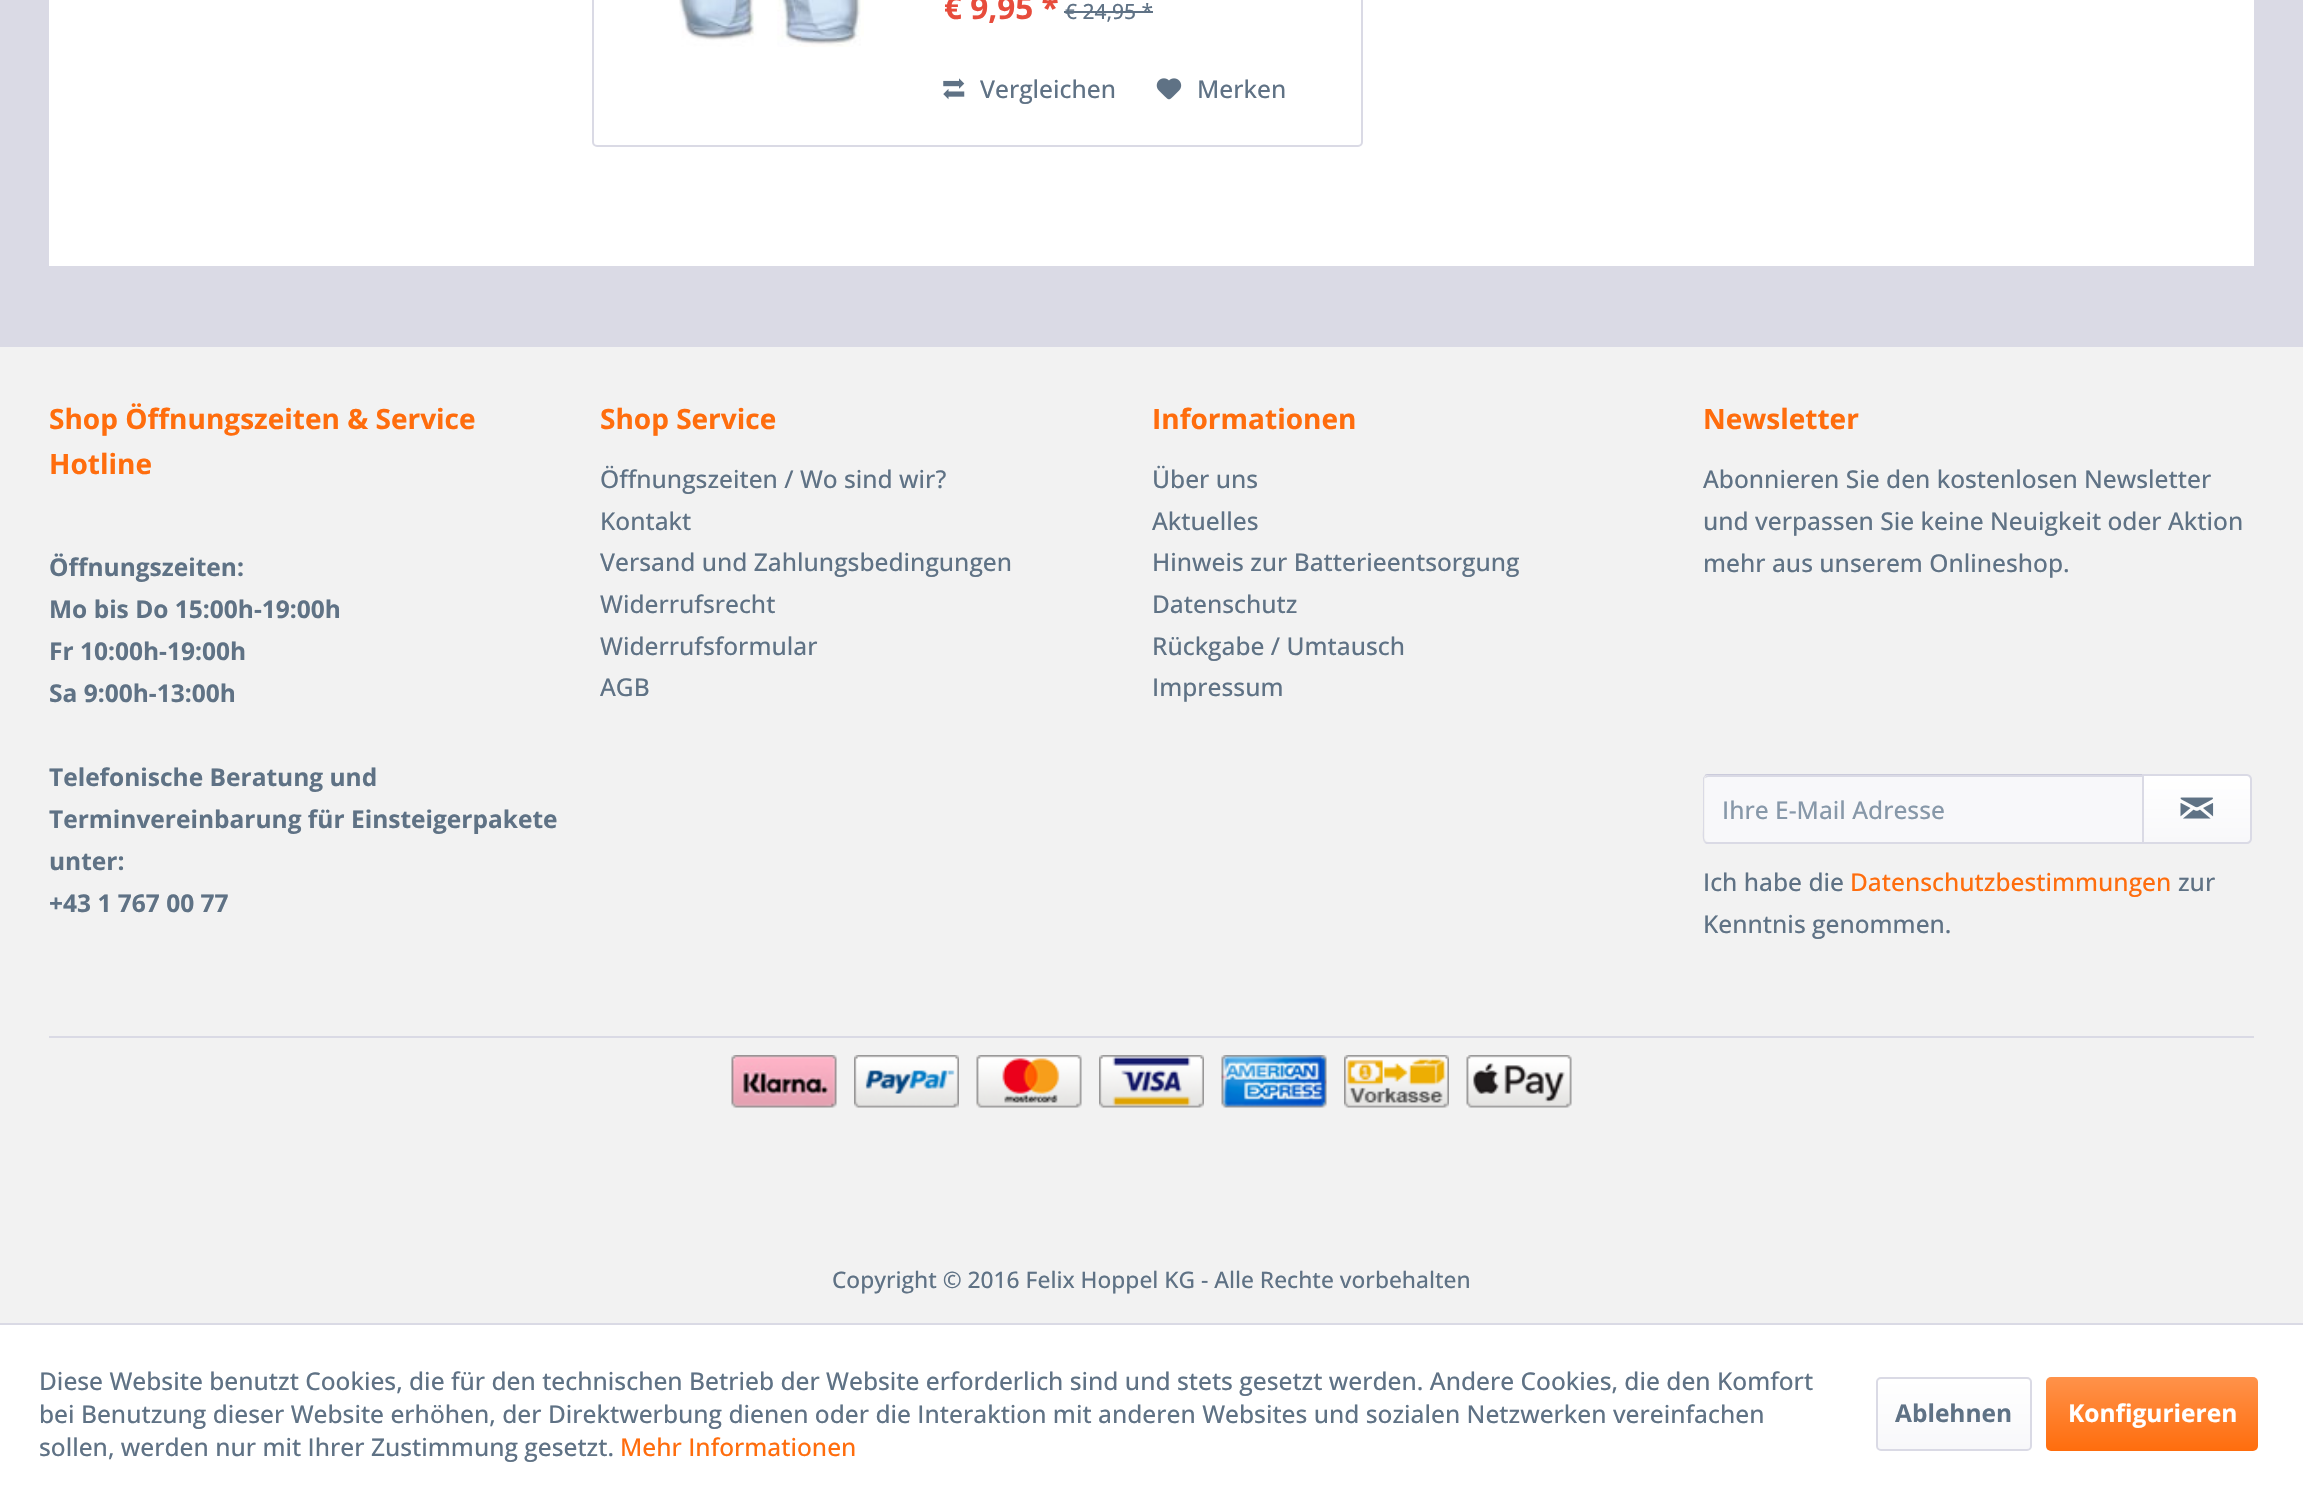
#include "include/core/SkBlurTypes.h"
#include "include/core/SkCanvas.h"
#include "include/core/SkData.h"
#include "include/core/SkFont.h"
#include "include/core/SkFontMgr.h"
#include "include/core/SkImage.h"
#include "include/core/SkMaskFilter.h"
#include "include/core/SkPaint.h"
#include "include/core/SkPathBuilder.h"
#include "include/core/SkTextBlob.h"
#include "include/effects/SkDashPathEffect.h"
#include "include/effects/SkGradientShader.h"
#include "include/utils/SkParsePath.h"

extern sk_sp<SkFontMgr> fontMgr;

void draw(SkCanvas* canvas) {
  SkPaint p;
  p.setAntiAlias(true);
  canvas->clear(SkColorSetRGB(218, 218, 229));
  p.setColor(SK_ColorWHITE);
  canvas->drawRect(SkRect::MakeLTRB(49, 0, 2254, 266), p);
  p.setStyle(SkPaint::kStroke_Style);
  p.setStrokeWidth(2);
  p.setColor(SkColorSetRGB(218, 218, 229));
  canvas->drawRoundRect(SkRect::MakeLTRB(593, -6, 1362, 146), 4, 4, p);
  canvas->drawImageRect(SkImages::DeferredFromEncodedData(SkData::MakeFromFileName("images/1.png")), SkRect::MakeLTRB(679, 0, 864, 47), SkSamplingOptions());
  p.setStyle(SkPaint::kFill_Style);
  p.setColor(SkColorSetRGB(95, 114, 133));
  canvas->drawRect(SkRect::MakeLTRB(1064, 11, 1153, 13), p);
  canvas->drawImageRect(SkImages::DeferredFromEncodedData(SkData::MakeFromFileName("images/2.png")), SkRect::MakeLTRB(943, 78, 965, 100), SkSamplingOptions());
  canvas->drawImageRect(SkImages::DeferredFromEncodedData(SkData::MakeFromFileName("images/3.png")), SkRect::MakeLTRB(1156, 78, 1182, 100), SkSamplingOptions());
  p.setColor(SkColorSetRGB(242, 242, 242));
  canvas->drawRect(SkRect::MakeLTRB(0, 347, 2303, 1323), p);
  p.setColor(SkColorSetRGB(218, 218, 229));
  canvas->drawRect(SkRect::MakeLTRB(49, 1036, 2254, 1038), p);
  p.setColor(SkColorSetRGB(248, 248, 250));
  canvas->drawPath(SkPathBuilder().moveTo(1709, 775).lineTo(2142, 775).lineTo(2142, 842).lineTo(1709, 842).cubicTo(1707, 842, 1705, 840, 1705, 838).lineTo(1705, 779).cubicTo(1705, 777, 1707, 775, 1709, 775).close().detach(), p);
  p.setColor(SkColorSetRGB(218, 218, 229));
  canvas->drawPath(SkPathBuilder().moveTo(1708, 777).lineTo(2142, 777).lineTo(2142, 775).lineTo(1709, 775).cubicTo(1707, 775, 1705, 776, 1705, 778).close().detach(), p);
  p.setColor(SkColorSetRGB(203, 203, 219));
  canvas->drawPath(SkPathBuilder().moveTo(1708, 774).cubicTo(1707, 774, 1705, 774, 1705, 775).lineTo(1705, 776).cubicTo(1706, 775, 1707, 775, 1708, 775).lineTo(2142, 775).lineTo(2143, 774).close().detach(), p);
  p.setColor(SkColorSetRGB(218, 218, 229));
  canvas->drawPath(SkPathBuilder().moveTo(2144, 844).lineTo(1706, 844).lineTo(1704, 842).lineTo(1705, 841).cubicTo(1706, 842, 1707, 842, 1708, 842).lineTo(2142, 842).close().detach(), p);
  canvas->drawPath(SkPathBuilder().moveTo(1705, 775).lineTo(1703, 778).lineTo(1703, 828).cubicTo(1703, 831, 1702, 838, 1704, 842).lineTo(1705, 841).lineTo(1704, 838).lineTo(1704, 779).lineTo(1705, 776).close().detach(), p);
  {
    const SkColor colors[] = {SK_ColorWHITE, SkColorSetRGB(248, 248, 250)};
    const float stops[] = {0, 1};
    const SkPoint ends[] = {{2197, 775}, {2197, 842}};
    p.setShader(SkGradientShader::MakeLinear(ends, colors, stops, 2, SkTileMode::kClamp));
    p.setAlpha(255);
  }
  canvas->drawPath(SkPathBuilder().moveTo(2144, 775).lineTo(2247, 775).cubicTo(2249, 775, 2251, 777, 2251, 779).lineTo(2251, 838).cubicTo(2251, 840, 2249, 842, 2247, 842).lineTo(2144, 842).close().detach(), p);
  p.setStyle(SkPaint::kStroke_Style);
  p.setShader(nullptr);
  p.setColor(SkColorSetRGB(218, 218, 229));
  canvas->drawPath(SkPathBuilder().moveTo(2143, 775).lineTo(2247, 775).cubicTo(2249, 775, 2251, 777, 2251, 779).lineTo(2251, 839).cubicTo(2251, 841, 2249, 843, 2247, 843).lineTo(2143, 843).close().detach(), p);
  canvas->drawImageRect(SkImages::DeferredFromEncodedData(SkData::MakeFromFileName("images/4.png")), SkRect::MakeLTRB(2180, 797, 2214, 819), SkSamplingOptions());
  canvas->drawImageRect(SkImages::DeferredFromEncodedData(SkData::MakeFromFileName("images/5.png")), SkRect::MakeLTRB(731, 1055, 837, 1108), SkSamplingOptions());
  canvas->drawImageRect(SkImages::DeferredFromEncodedData(SkData::MakeFromFileName("images/6.png")), SkRect::MakeLTRB(854, 1055, 959, 1108), SkSamplingOptions());
  canvas->drawImageRect(SkImages::DeferredFromEncodedData(SkData::MakeFromFileName("images/7.png")), SkRect::MakeLTRB(976, 1055, 1082, 1108), SkSamplingOptions());
  canvas->drawImageRect(SkImages::DeferredFromEncodedData(SkData::MakeFromFileName("images/8.png")), SkRect::MakeLTRB(1099, 1055, 1204, 1108), SkSamplingOptions());
  canvas->drawImageRect(SkImages::DeferredFromEncodedData(SkData::MakeFromFileName("images/9.png")), SkRect::MakeLTRB(1221, 1055, 1327, 1108), SkSamplingOptions());
  canvas->drawImageRect(SkImages::DeferredFromEncodedData(SkData::MakeFromFileName("images/10.png")), SkRect::MakeLTRB(1344, 1055, 1449, 1108), SkSamplingOptions());
  canvas->drawImageRect(SkImages::DeferredFromEncodedData(SkData::MakeFromFileName("images/11.png")), SkRect::MakeLTRB(1466, 1055, 1572, 1108), SkSamplingOptions());
  p.setStyle(SkPaint::kFill_Style);
  p.setColor(SK_ColorWHITE);
  canvas->drawRect(SkRect::MakeLTRB(0, 1325, 2303, 1501), p);
  {
    const SkColor colors[] = {SK_ColorWHITE, SkColorSetRGB(248, 248, 250)};
    const float stops[] = {0, 1};
    const SkPoint ends[] = {{1954, 1379}, {1954, 1449}};
    p.setShader(SkGradientShader::MakeLinear(ends, colors, stops, 2, SkTileMode::kClamp));
    p.setAlpha(255);
  }
  canvas->drawRoundRect(SkRect::MakeLTRB(1878, 1379, 2030, 1449), 4, 4, p);
  p.setStyle(SkPaint::kStroke_Style);
  p.setShader(nullptr);
  p.setColor(SkColorSetRGB(218, 218, 229));
  canvas->drawRoundRect(SkRect::MakeLTRB(1877, 1378, 2031, 1450), 4, 4, p);
  p.setStyle(SkPaint::kFill_Style);
  {
    const SkColor colors[] = {SkColorSetRGB(255, 146, 74), SkColorSetRGB(255, 109, 13)};
    const float stops[] = {0, 1};
    const SkPoint ends[] = {{2152, 1377}, {2152, 1451}};
    p.setShader(SkGradientShader::MakeLinear(ends, colors, stops, 2, SkTileMode::kClamp));
    p.setAlpha(255);
  }
  canvas->drawRoundRect(SkRect::MakeLTRB(2046, 1377, 2258, 1451), 5, 5, p);
  SkFont font1(fontMgr->matchFamilyStyle("Open Sans", SkFontStyle::Bold()), 31.5f);
  font1.setSubpixel(true);
  p.setShader(nullptr);
  p.setColor(SkColorSetRGB(231, 76, 60));
  canvas->drawString("€ 9,95 *", 944, 19, font1, p);
  SkFont font2(fontMgr->matchFamilyStyle("Open Sans", SkFontStyle(500, SkFontStyle::kNormal_Width, SkFontStyle::kUpright_Slant)), 21);
  font2.setSubpixel(true);
  p.setColor(SkColorSetRGB(95, 114, 133));
  canvas->drawString("€ 24,95 *", 1065, 19, font2, p);
  SkFont font3(fontMgr->matchFamilyStyle("Open Sans", SkFontStyle(500, SkFontStyle::kNormal_Width, SkFontStyle::kUpright_Slant)), 24.5f);
  font3.setSubpixel(true);
  canvas->drawString("Vergleichen", 980, 98, font3, p);
  canvas->drawString("Merken", 1197, 98, font3, p);
  SkFont font4(fontMgr->matchFamilyStyle("Open Sans", SkFontStyle::Bold()), 28);
  font4.setSubpixel(true);
  p.setColor(SkColorSetRGB(255, 109, 13));
  canvas->drawString("Shop Öffnungszeiten & Service", 49, 429, font4, p);
  canvas->drawString("Hotline", 49, 474, font4, p);
  SkFont font5(fontMgr->matchFamilyStyle("Open Sans", SkFontStyle::Bold()), 24.5f);
  font5.setSubpixel(true);
  p.setColor(SkColorSetRGB(95, 114, 133));
  canvas->drawString("Öffnungszeiten:", 49, 576, font5, p);
  canvas->drawString("Mo bis Do 15:00h-19:00h", 49, 618, font5, p);
  canvas->drawString("Fr 10:00h-19:00h", 49, 660, font5, p);
  canvas->drawString("Sa 9:00h-13:00h", 49, 702, font5, p);
  canvas->drawString("Telefonische Beratung und", 49, 786, font5, p);
  canvas->drawString("Terminvereinbarung für Einsteigerpakete", 49, 828, font5, p);
  canvas->drawString("unter:", 49, 870, font5, p);
  canvas->drawString("+43 1 767 00 77", 49, 912, font5, p);
  p.setColor(SkColorSetRGB(255, 109, 13));
  canvas->drawString("Shop Service", 600, 429, font4, p);
  p.setColor(SkColorSetRGB(95, 114, 133));
  canvas->drawString("Öffnungszeiten / Wo sind wir?", 600, 488, font3, p);
  canvas->drawString("Kontakt", 600, 530, font3, p);
  canvas->drawString("Versand und Zahlungsbedingungen", 600, 571, font3, p);
  canvas->drawString("Widerrufsrecht", 600, 613, font3, p);
  canvas->drawString("Widerrufsformular", 600, 655, font3, p);
  canvas->drawString("AGB", 600, 696, font3, p);
  p.setColor(SkColorSetRGB(255, 109, 13));
  canvas->drawString("Informationen", 1152, 429, font4, p);
  p.setColor(SkColorSetRGB(95, 114, 133));
  canvas->drawString("Über uns", 1152, 488, font3, p);
  canvas->drawString("Aktuelles", 1152, 530, font3, p);
  canvas->drawString("Hinweis zur Batterieentsorgung", 1152, 571, font3, p);
  canvas->drawString("Datenschutz", 1152, 613, font3, p);
  canvas->drawString("Rückgabe / Umtausch", 1152, 655, font3, p);
  canvas->drawString("Impressum", 1152, 696, font3, p);
  p.setColor(SkColorSetRGB(255, 109, 13));
  canvas->drawString("Newsletter", 1703, 429, font4, p);
  p.setColor(SkColorSetRGB(95, 114, 133));
  canvas->drawString("Abonnieren Sie den kostenlosen Newsletter", 1703, 488, font3, p);
  canvas->drawString("und verpassen Sie keine Neuigkeit oder Aktion", 1703, 530, font3, p);
  canvas->drawString("mehr aus unserem Onlineshop.", 1703, 572, font3, p);
  p.setColor(SkColorSetRGB(135, 152, 169));
  canvas->drawString("Ihre E-Mail Adresse", 1722, 819, font3, p);
  p.setColor(SkColorSetRGB(95, 114, 133));
  canvas->drawString("Ich habe die", 1703, 891, font3, p);
  p.setColor(SkColorSetRGB(255, 109, 13));
  canvas->drawString("Datenschutzbestimmungen", 1850, 891, font3, p);
  p.setColor(SkColorSetRGB(95, 114, 133));
  canvas->drawString("zur", 2178, 891, font3, p);
  canvas->drawString("Kenntnis genommen.", 1703, 933, font3, p);
  SkFont font6(fontMgr->matchFamilyStyle("Open Sans", SkFontStyle(500, SkFontStyle::kNormal_Width, SkFontStyle::kUpright_Slant)), 22.75f);
  font6.setSubpixel(true);
  canvas->drawString("Copyright © 2016 Felix Hoppel KG - Alle Rechte vorbehalten", 832, 1288, font6, p);
  canvas->drawString("Diese Website benutzt Cookies, die für den technischen Betrieb der Website erforderlich sind und stets gesetzt werden. Andere Cookies, die den Komfort", 39, 1390, font3, p);
  canvas->drawString("bei Benutzung dieser Website erhöhen, der Direktwerbung dienen oder die Interaktion mit anderen Websites und sozialen Netzwerken vereinfachen", 39, 1423, font3, p);
  canvas->drawString("sollen, werden nur mit Ihrer Zustimmung gesetzt.", 39, 1456, font3, p);
  p.setColor(SkColorSetRGB(255, 109, 13));
  canvas->drawString("Mehr Informationen", 620, 1456, font3, p);
  p.setColor(SkColorSetRGB(95, 114, 133));
  canvas->drawString("Ablehnen", 1895, 1422, font5, p);
  p.setColor(SK_ColorWHITE);
  canvas->drawString("Konfigurieren", 2068, 1422, font5, p);
}
